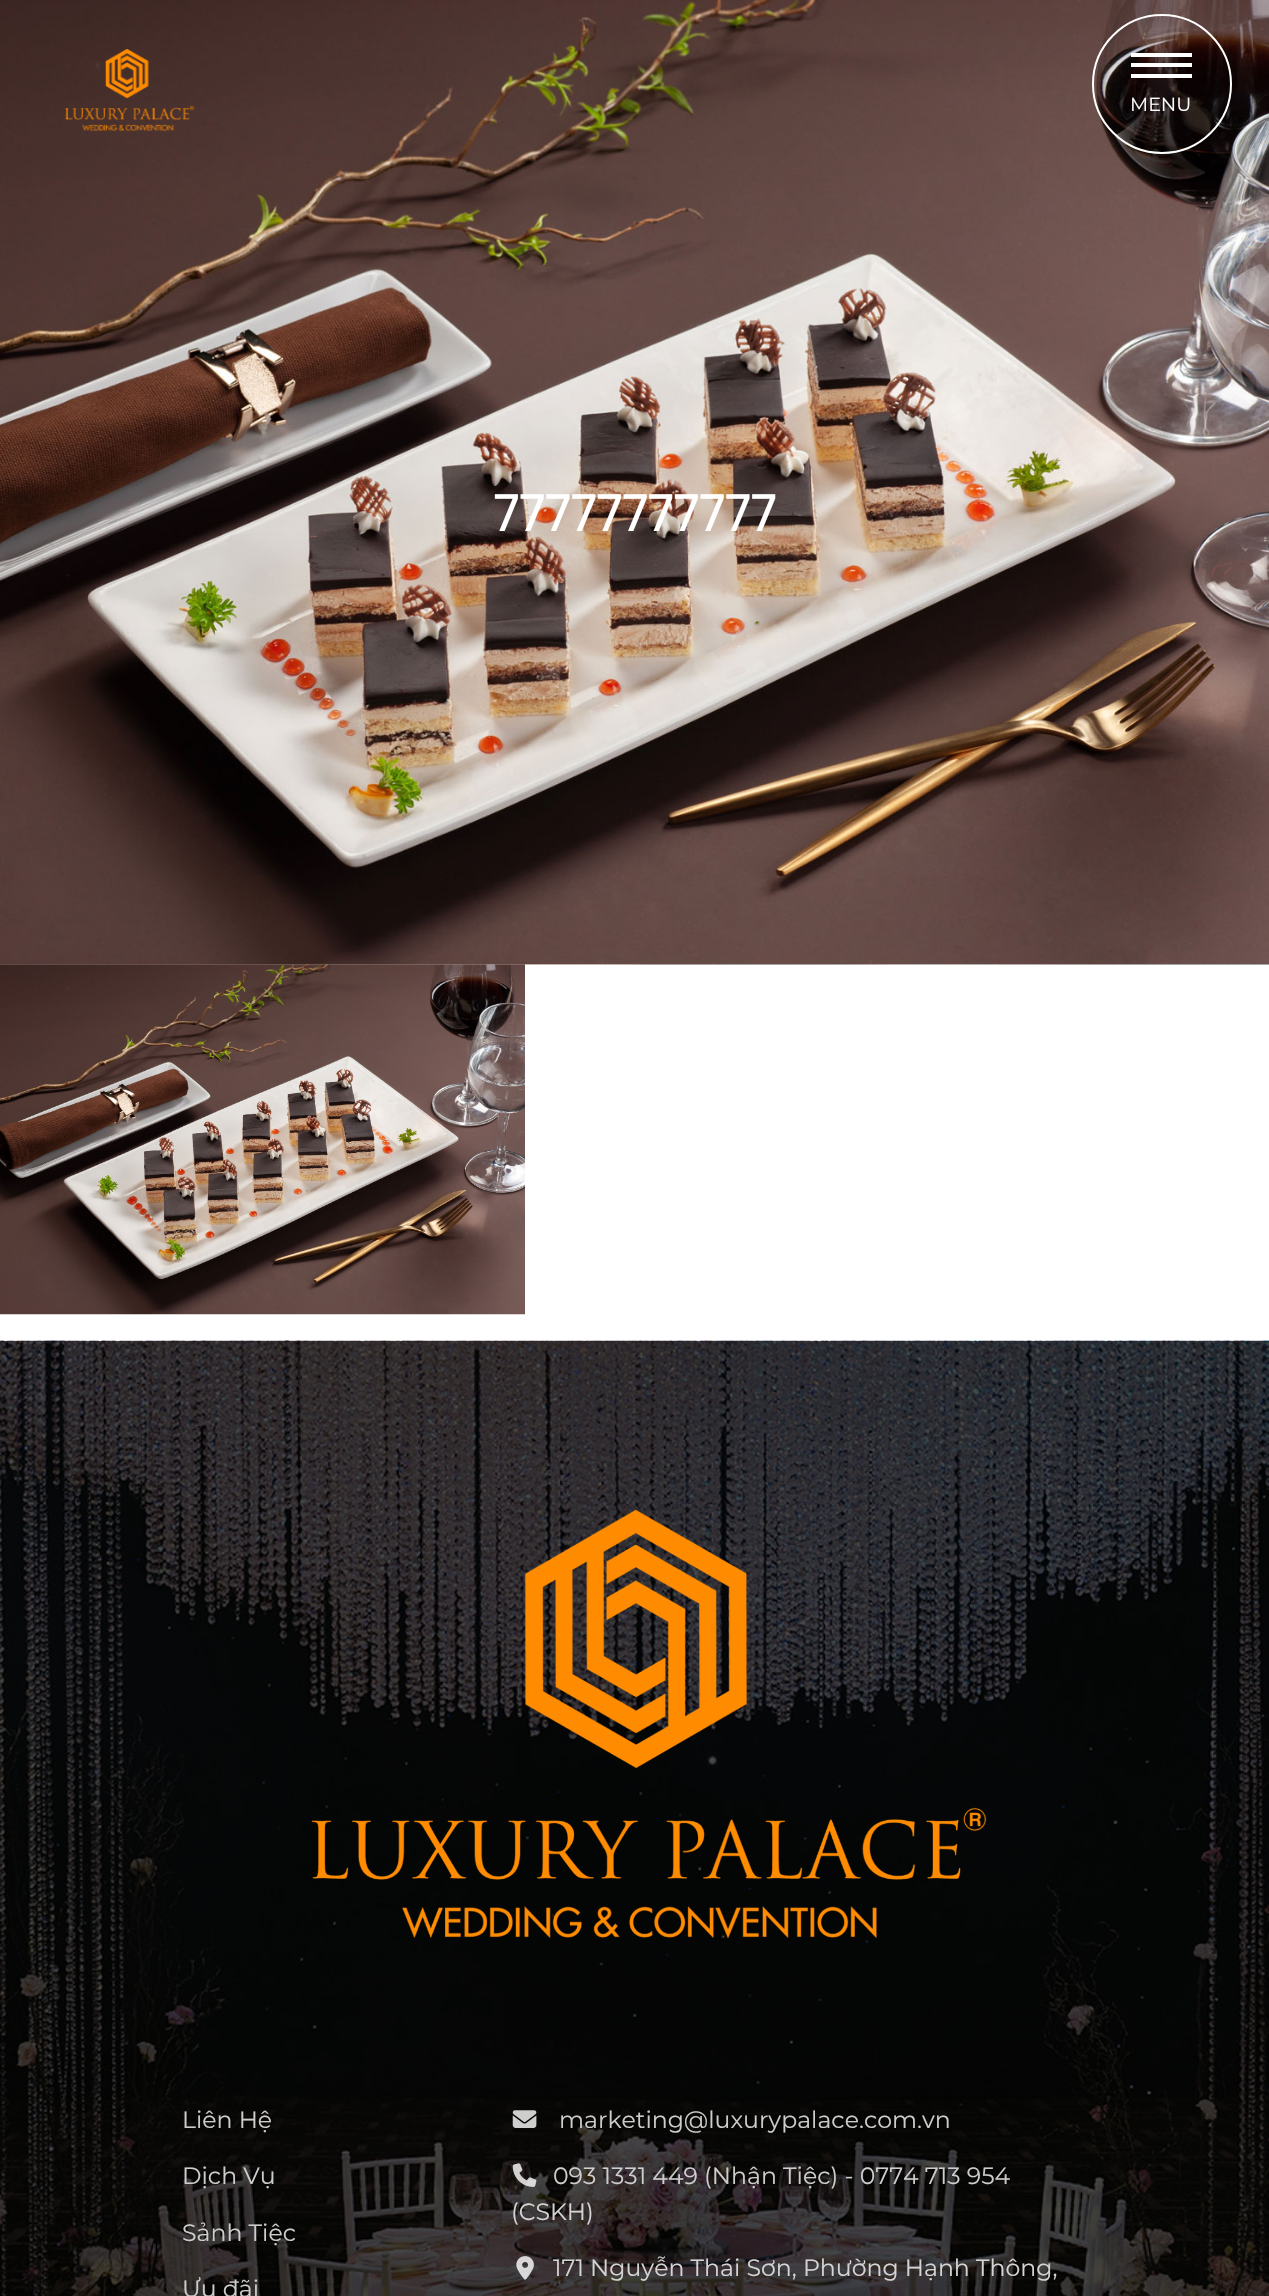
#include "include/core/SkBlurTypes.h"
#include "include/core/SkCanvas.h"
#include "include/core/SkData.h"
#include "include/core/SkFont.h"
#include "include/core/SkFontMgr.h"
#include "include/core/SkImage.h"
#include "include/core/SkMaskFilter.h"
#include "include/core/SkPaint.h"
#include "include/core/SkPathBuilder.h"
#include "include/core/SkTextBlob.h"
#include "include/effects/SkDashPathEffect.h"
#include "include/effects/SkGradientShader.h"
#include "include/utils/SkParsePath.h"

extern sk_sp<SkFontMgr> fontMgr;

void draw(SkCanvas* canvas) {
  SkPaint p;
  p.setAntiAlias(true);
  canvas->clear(SK_ColorWHITE);
  canvas->drawImageRect(SkImages::DeferredFromEncodedData(SkData::MakeFromFileName("images/4.png")), SkRect::MakeLTRB(0, 964, 525, 1315), SkSamplingOptions());
  canvas->drawImageRect(SkImages::DeferredFromEncodedData(SkData::MakeFromFileName("images/2.png")), SkRect::MakeLTRB(0, 964, 1269, 965), SkSamplingOptions());
  canvas->drawImageRect(SkImages::DeferredFromEncodedData(SkData::MakeFromFileName("images/3.png")), SkRect::MakeLTRB(0, 0, 1269, 965), SkSamplingOptions());
  canvas->drawImageRect(SkImages::DeferredFromEncodedData(SkData::MakeFromFileName("images/1.png")), SkRect::MakeLTRB(64, 48, 195, 132), SkSamplingOptions());
  p.setStyle(SkPaint::kStroke_Style);
  p.setStrokeWidth(2);
  p.setColor(SK_ColorWHITE);
  canvas->drawCircle(1162, 84, 69, p);
  p.setStyle(SkPaint::kFill_Style);
  canvas->drawRect(SkRect::MakeLTRB(1131, 53, 1192, 57), p);
  canvas->drawRect(SkRect::MakeLTRB(1131, 63, 1192, 67), p);
  canvas->drawRect(SkRect::MakeLTRB(1131, 74, 1192, 78), p);
  canvas->drawImageRect(SkImages::DeferredFromEncodedData(SkData::MakeFromFileName("images/5.png")), SkRect::MakeLTRB(0, 1340, 1269, 2296), SkSamplingOptions());
  canvas->drawImageRect(SkImages::DeferredFromEncodedData(SkData::MakeFromFileName("images/6.png")), SkRect::MakeLTRB(311, 1509, 987, 1939), SkSamplingOptions());
  canvas->drawImageRect(SkImages::DeferredFromEncodedData(SkData::MakeFromFileName("images/7.png")), SkRect::MakeLTRB(512, 2110, 537, 2128), SkSamplingOptions());
  canvas->drawImageRect(SkImages::DeferredFromEncodedData(SkData::MakeFromFileName("images/8.png")), SkRect::MakeLTRB(512, 2163, 537, 2187), SkSamplingOptions());
  canvas->drawImageRect(SkImages::DeferredFromEncodedData(SkData::MakeFromFileName("images/9.png")), SkRect::MakeLTRB(516, 2256, 534, 2280), SkSamplingOptions());
  SkFont font1(fontMgr->matchFamilyStyle("Montserrat", SkFontStyle::Normal()), 19);
  font1.setSubpixel(true);
  canvas->drawString("MENU", 1130, 111, font1, p);
  SkFont font2(fontMgr->matchFamilyStyle("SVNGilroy", SkFontStyle(500, SkFontStyle::kNormal_Width, SkFontStyle::kUpright_Slant)), 52.5f);
  font2.setSubpixel(true);
  canvas->drawString("77777777777", 494, 531, font2, p);
  SkFont font3(fontMgr->matchFamilyStyle("Montserrat", SkFontStyle::Normal()), 23.6f);
  font3.setSubpixel(true);
  p.setColor(SkColorSetRGB(206, 205, 205));
  canvas->drawString("Liên Hệ", 182, 2128, font3, p);
  canvas->drawString("Dịch Vụ", 182, 2184, font3, p);
  canvas->drawString("Sảnh Tiệc", 182, 2241, font3, p);
  canvas->drawString("Ưu đãi", 182, 2297, font3, p);
  canvas->drawString("marketing@luxurypalace.com.vn", 559, 2128, font3, p);
  canvas->drawString("093 1331 449 (Nhận Tiệc) - 0774 713 954", 553, 2184, font3, p);
  p.setColor(SkColorSetRGB(213, 212, 212));
  canvas->drawString("(CSKH)", 511, 2220, font3, p);
  canvas->drawString("171 Nguyễn Thái Sơn, Phường Hạnh Thông,", 553, 2276, font3, p);
}
